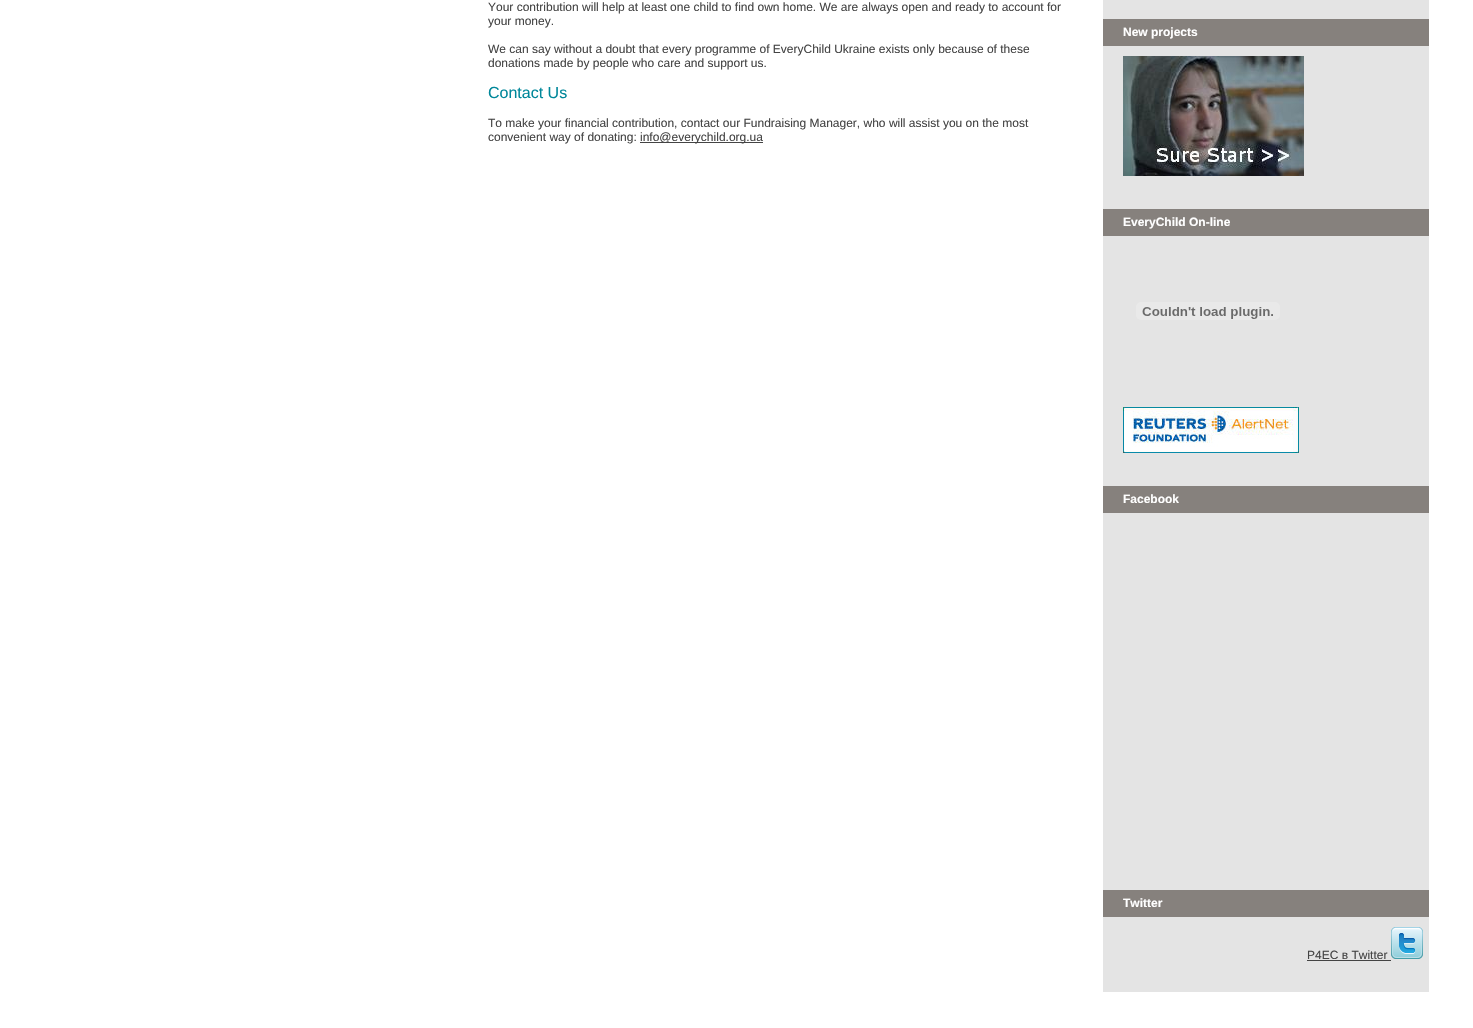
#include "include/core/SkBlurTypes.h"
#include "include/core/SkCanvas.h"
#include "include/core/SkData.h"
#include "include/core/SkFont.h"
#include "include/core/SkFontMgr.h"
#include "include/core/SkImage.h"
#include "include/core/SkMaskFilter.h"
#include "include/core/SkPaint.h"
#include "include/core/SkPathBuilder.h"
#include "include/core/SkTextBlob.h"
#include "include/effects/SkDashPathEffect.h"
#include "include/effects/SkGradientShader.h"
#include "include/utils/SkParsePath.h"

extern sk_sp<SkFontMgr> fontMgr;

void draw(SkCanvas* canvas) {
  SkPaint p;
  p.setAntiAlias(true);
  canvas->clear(SK_ColorWHITE);
  p.setColor(SkColorSetRGB(68, 68, 68));
  canvas->drawRect(SkRect::MakeLTRB(640, 142, 763, 143), p);
  p.setColor(SkColorSetRGB(228, 228, 228));
  canvas->drawRect(SkRect::MakeLTRB(1103, 0, 1429, 992), p);
  p.setColor(SkColorSetRGB(134, 129, 125));
  canvas->drawRect(SkRect::MakeLTRB(1103, 19, 1429, 46), p);
  canvas->drawImageRect(SkImages::DeferredFromEncodedData(SkData::MakeFromFileName("images/1.png")), SkRect::MakeLTRB(1123, 56, 1304, 176), SkSamplingOptions());
  canvas->drawRect(SkRect::MakeLTRB(1103, 209, 1429, 236), p);
  canvas->drawImageRect(SkImages::DeferredFromEncodedData(SkData::MakeFromFileName("images/2.png")), SkRect::MakeLTRB(1136, 302, 1280, 320), SkSamplingOptions());
  canvas->drawImageRect(SkImages::DeferredFromEncodedData(SkData::MakeFromFileName("images/3.png")), SkRect::MakeLTRB(1123, 407, 1299, 453), SkSamplingOptions());
  canvas->drawRect(SkRect::MakeLTRB(1103, 486, 1429, 513), p);
  canvas->drawRect(SkRect::MakeLTRB(1103, 890, 1429, 917), p);
  p.setColor(SkColorSetRGB(68, 68, 68));
  canvas->drawRect(SkRect::MakeLTRB(1307, 960, 1391, 961), p);
  canvas->drawImageRect(SkImages::DeferredFromEncodedData(SkData::MakeFromFileName("images/4.png")), SkRect::MakeLTRB(1391, 927, 1423, 959), SkSamplingOptions());
  SkFont font1(fontMgr->matchFamilyStyle("Liberation Sans", SkFontStyle::Normal()), 12);
  font1.setSubpixel(true);
  canvas->drawString("Your contribution will help at least one child to find own home. We are always open and ready to account for", 488, 11, font1, p);
  canvas->drawString("your money.", 488, 25, font1, p);
  canvas->drawString("We can say without a doubt that every programme of EveryChild Ukraine exists only because of these", 488, 53, font1, p);
  canvas->drawString("donations made by people who care and support us.", 488, 67, font1, p);
  SkFont font2(fontMgr->matchFamilyStyle("Liberation Sans", SkFontStyle::Normal()), 16);
  font2.setSubpixel(true);
  p.setColor(SkColorSetRGB(0, 135, 154));
  canvas->drawString("Contact Us", 488, 98, font2, p);
  p.setColor(SkColorSetRGB(68, 68, 68));
  canvas->drawString("To make your financial contribution, contact our Fundraising Manager, who will assist you on the most", 488, 127, font1, p);
  canvas->drawString("convenient way of donating:", 488, 141, font1, p);
  canvas->drawString("info@everychild.org.ua", 640, 141, font1, p);
  SkFont font3(fontMgr->matchFamilyStyle("Liberation Sans", SkFontStyle::Bold()), 12);
  font3.setSubpixel(true);
  p.setColor(SK_ColorWHITE);
  canvas->drawString("New projects", 1123, 36, font3, p);
  canvas->drawString("EveryChild On-line", 1123, 226, font3, p);
  canvas->drawString("Facebook", 1123, 503, font3, p);
  canvas->drawString("Twitter", 1123, 907, font3, p);
  p.setColor(SkColorSetRGB(68, 68, 68));
  canvas->drawString("P4EC в Twitter", 1307, 959, font1, p);
}
